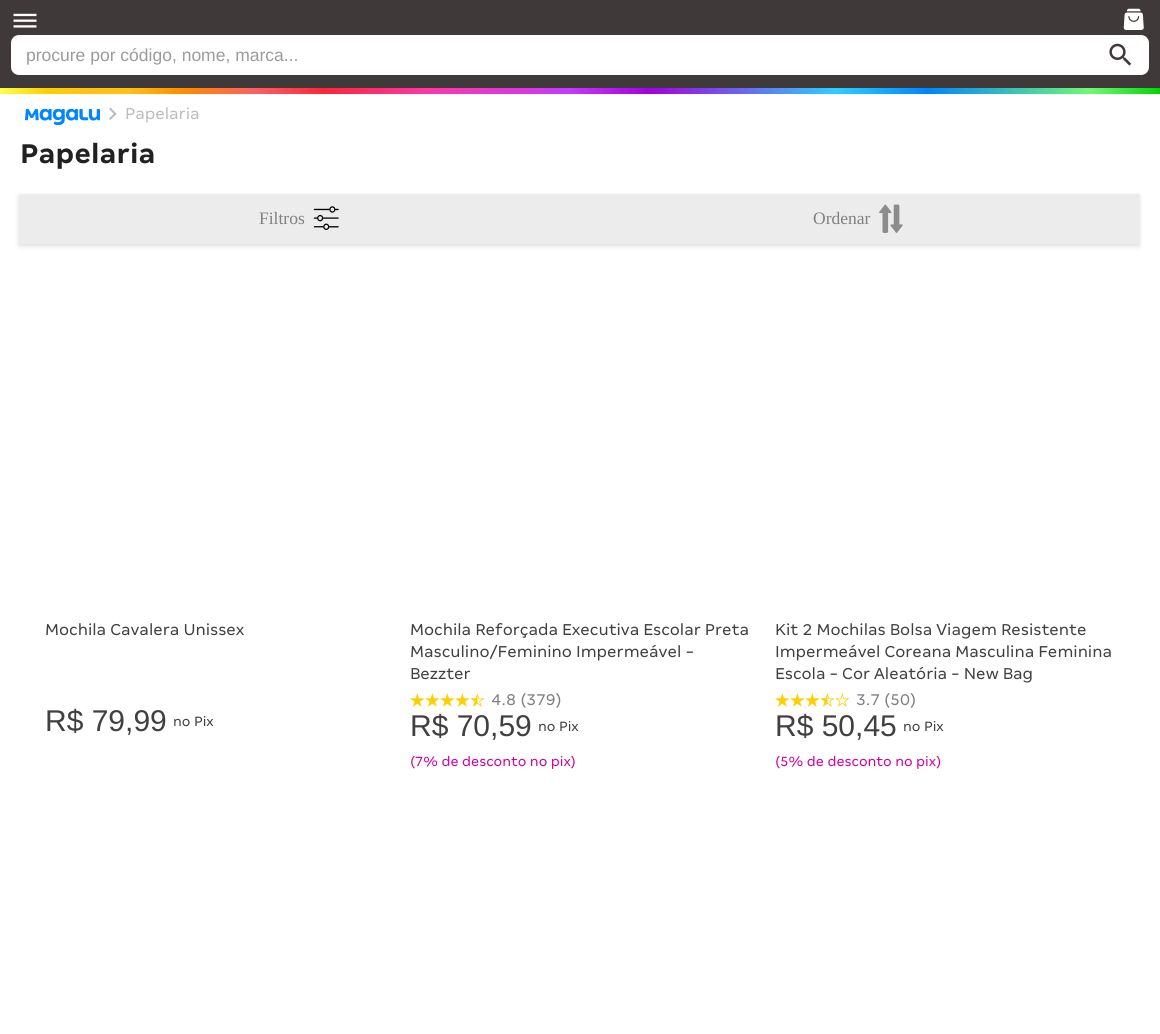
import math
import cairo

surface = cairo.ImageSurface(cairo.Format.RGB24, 1160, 1034)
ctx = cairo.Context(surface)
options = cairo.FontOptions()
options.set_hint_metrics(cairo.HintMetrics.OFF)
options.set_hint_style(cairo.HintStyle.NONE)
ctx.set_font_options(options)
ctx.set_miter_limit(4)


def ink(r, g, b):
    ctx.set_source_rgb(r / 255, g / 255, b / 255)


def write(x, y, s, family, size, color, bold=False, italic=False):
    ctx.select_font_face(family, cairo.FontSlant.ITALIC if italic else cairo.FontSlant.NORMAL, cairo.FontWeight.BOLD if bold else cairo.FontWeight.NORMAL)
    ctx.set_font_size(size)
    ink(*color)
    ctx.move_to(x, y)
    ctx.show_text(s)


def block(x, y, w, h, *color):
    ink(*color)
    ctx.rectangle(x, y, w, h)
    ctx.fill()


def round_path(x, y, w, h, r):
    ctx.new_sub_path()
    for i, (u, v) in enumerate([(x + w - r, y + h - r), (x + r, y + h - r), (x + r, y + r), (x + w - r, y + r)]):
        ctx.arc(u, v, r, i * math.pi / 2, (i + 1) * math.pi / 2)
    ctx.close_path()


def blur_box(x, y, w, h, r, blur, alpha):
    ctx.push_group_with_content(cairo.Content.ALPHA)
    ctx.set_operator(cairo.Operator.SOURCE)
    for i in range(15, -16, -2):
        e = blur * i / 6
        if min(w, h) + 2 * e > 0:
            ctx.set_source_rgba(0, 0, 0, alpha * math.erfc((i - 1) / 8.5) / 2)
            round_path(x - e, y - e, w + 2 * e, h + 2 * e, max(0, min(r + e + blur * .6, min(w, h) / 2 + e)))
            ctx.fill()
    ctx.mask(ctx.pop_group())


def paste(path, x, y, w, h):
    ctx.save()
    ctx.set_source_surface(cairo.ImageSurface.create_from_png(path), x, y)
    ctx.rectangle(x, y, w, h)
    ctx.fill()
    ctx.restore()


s1 = dict(family="Liberation Sans", size=17.5, color=(155, 155, 155))
s2 = dict(family="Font", size=17.5, color=(188, 188, 188))
s3 = dict(family="Font", size=30, color=(33, 33, 33), bold=True)
s4 = dict(family="Liberation Serif", size=17.5, color=(128, 128, 128))
s5 = dict(family="Font", size=17.5, color=(64, 64, 64))
s6 = dict(family="Liberation Sans", size=30, color=(64, 64, 64))
s7 = dict(family="Font", size=15, color=(64, 64, 64))
s8 = dict(family="Font", size=17.5, color=(128, 128, 128))
s9 = dict(family="Font", size=15, color=(209, 0, 162))

ink(255, 255, 255)
ctx.paint()
block(0, 0, 1160, 88, 64, 57, 57)
paste("pic1.png", 13, 13, 24, 15)
paste("pic2.png", 1123, 8, 21, 22)
ink(255, 255, 255)
round_path(11, 35, 1138, 40, 8)
ctx.fill()
write(26, 61, "procure por código, nome, marca...", **s1)
paste("pic3.png", 1109, 43, 23, 23)
gradient = cairo.LinearGradient(0, 91, 1160, 91)
gradient.add_color_stop_rgba(0, 1, 1, 0.29, 1)
gradient.add_color_stop_rgba(0.04, 0.988, 0.816, 0, 1)
gradient.add_color_stop_rgba(0.08, 1, 0.757, 0.071, 1)
gradient.add_color_stop_rgba(0.11, 1, 0.757, 0.071, 1)
gradient.add_color_stop_rgba(0.16, 1, 0.541, 0, 1)
gradient.add_color_stop_rgba(0.22, 1, 0.373, 0.373, 1)
gradient.add_color_stop_rgba(0.28, 1, 0.145, 0.227, 1)
gradient.add_color_stop_rgba(0.37, 1, 0.216, 0.659, 1)
gradient.add_color_stop_rgba(0.49, 0.78, 0.224, 1, 1)
gradient.add_color_stop_rgba(0.56, 0.643, 0, 0.882, 1)
gradient.add_color_stop_rgba(0.72, 0.18, 0.808, 1, 1)
gradient.add_color_stop_rgba(0.8, 0, 0.525, 1, 1)
gradient.add_color_stop_rgba(0.94, 0.447, 0.969, 0.447, 1)
gradient.add_color_stop_rgba(1, 0, 0.839, 0.016, 1)
ctx.set_source(gradient)
ctx.rectangle(0, 88, 1160, 6)
ctx.fill()
paste("pic4.png", 25, 109, 75, 17)
paste("pic5.png", 109, 107, 8, 13)
write(125, 119, "Papelaria", **s2)
write(20, 163, "Papelaria", **s3)
ink(0, 0, 0)
blur_box(19, 196, 1120, 50, 0, 2.5, 0.14)
block(20, 194, 1120, 50, 236, 236, 236)
write(259, 224, "Filtros", **s4)
paste("pic6.png", 313, 206, 26, 24)
write(813, 224, "Ordenar", **s4)
paste("pic7.png", 879, 204, 24, 29)
write(45, 635, "Mochila Cavalera Unissex", **s5)
write(45, 731, "R$ 79,99", **s6)
write(173, 726, "no Pix", **s7)
write(410, 635, "Mochila Reforçada Executiva Escolar Preta", **s5)
write(410, 657, "Masculino/Feminino Impermeável -", **s5)
write(410, 679, "Bezzter", **s5)
paste("pic8.png", 410, 693, 15, 14)
paste("pic8.png", 425, 693, 15, 14)
paste("pic8.png", 440, 693, 15, 14)
paste("pic8.png", 455, 693, 15, 14)
paste("pic9.png", 470, 693, 15, 14)
write(491, 705, "4.8 (379)", **s8)
write(410, 736, "R$ 70,59", **s6)
write(538, 731, "no Pix", **s7)
write(410, 766, "(7% de desconto no pix)", **s9)
write(775, 635, "Kit 2 Mochilas Bolsa Viagem Resistente", **s5)
write(775, 657, "Impermeável Coreana Masculina Feminina", **s5)
write(775, 679, "Escola - Cor Aleatória - New Bag", **s5)
paste("pic8.png", 775, 693, 15, 14)
paste("pic8.png", 790, 693, 15, 14)
paste("pic8.png", 805, 693, 15, 14)
paste("pic9.png", 820, 693, 15, 14)
paste("pic10.png", 835, 693, 15, 14)
write(856, 705, "3.7 (50)", **s8)
write(775, 736, "R$ 50,45", **s6)
write(903, 731, "no Pix", **s7)
write(775, 766, "(5% de desconto no pix)", **s9)
surface.write_to_png("screenshot.png")
